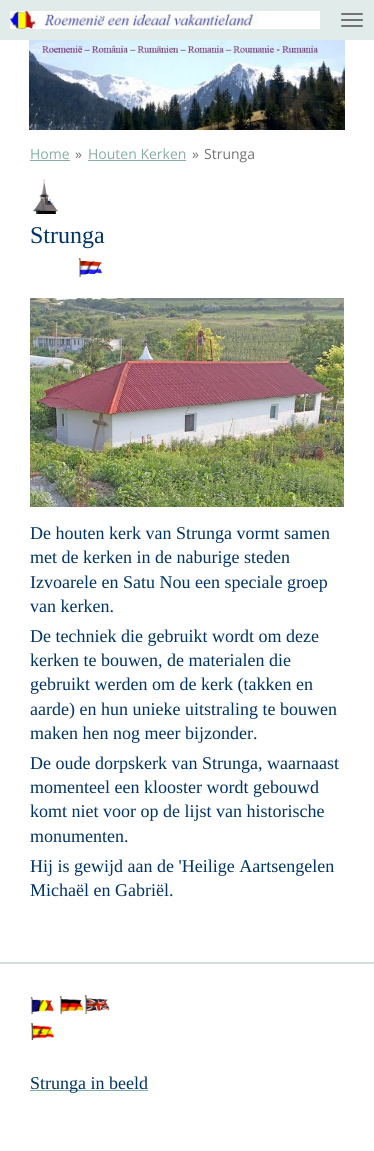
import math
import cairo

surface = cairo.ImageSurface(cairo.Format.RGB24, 374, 1151)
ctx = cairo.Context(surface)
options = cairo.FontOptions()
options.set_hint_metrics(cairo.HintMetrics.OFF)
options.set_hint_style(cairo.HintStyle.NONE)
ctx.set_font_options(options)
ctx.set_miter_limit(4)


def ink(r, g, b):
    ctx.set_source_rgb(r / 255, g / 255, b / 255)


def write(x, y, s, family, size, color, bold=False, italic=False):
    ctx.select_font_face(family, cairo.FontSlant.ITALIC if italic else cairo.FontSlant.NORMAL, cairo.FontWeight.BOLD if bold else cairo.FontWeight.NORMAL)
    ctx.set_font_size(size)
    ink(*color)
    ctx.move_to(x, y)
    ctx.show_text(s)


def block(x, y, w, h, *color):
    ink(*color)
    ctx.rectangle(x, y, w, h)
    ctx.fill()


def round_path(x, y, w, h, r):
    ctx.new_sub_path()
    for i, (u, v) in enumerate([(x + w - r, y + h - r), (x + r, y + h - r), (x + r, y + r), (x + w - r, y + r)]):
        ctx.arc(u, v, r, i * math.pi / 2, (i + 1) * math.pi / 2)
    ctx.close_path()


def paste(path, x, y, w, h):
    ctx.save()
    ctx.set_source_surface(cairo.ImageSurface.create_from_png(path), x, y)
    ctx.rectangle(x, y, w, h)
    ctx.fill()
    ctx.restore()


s1 = dict(family="Open Sans", size=14, color=(133, 174, 166))
s2 = dict(family="Open Sans", size=14, color=(115, 115, 115))
s3 = dict(family="Liberation Serif", size=24, color=(0, 51, 102))
s4 = dict(family="Liberation Serif", size=18, color=(0, 51, 102))

ink(255, 255, 255)
ctx.paint()
block(0, 0, 374, 40, 225, 235, 233)
ink(115, 115, 115)
round_path(341, 19, 22, 2, 1)
ctx.fill()
round_path(341, 13, 22, 2, 1)
ctx.fill()
round_path(341, 25, 22, 2, 1)
ctx.fill()
paste("pic1.png", 10, 11, 310, 18)
paste("pic2.png", 29, 40, 316, 90)
write(30, 159, "Home", **s1)
block(30, 160, 40, 1, 133, 174, 166)
write(75, 159, "»", **s2)
write(88, 159, "Houten Kerken", **s1)
block(88, 160, 98, 1, 133, 174, 166)
write(192, 159, "»", **s2)
write(204, 159, "Strunga", **s2)
paste("pic3.png", 33, 179, 25, 35)
write(30, 243, "Strunga", **s3)
paste("pic4.png", 78, 258, 25, 19)
paste("pic5.png", 30, 298, 314, 209)
write(30, 539, "De houten kerk van Strunga vormt samen", **s4)
write(30, 563, "met de kerken in de naburige steden", **s4)
write(30, 588, "Izvoarele en Satu Nou een speciale groep", **s4)
write(30, 612, "van kerken.", **s4)
write(30, 642, "De techniek die gebruikt wordt om deze", **s4)
write(30, 666, "kerken te bouwen, de materialen die", **s4)
write(30, 690, "gebruikt werden om de kerk (takken en", **s4)
write(30, 715, "aarde) en hun unieke uitstraling te bouwen", **s4)
write(30, 739, "maken hen nog meer bijzonder.", **s4)
write(30, 769, "De oude dorpskerk van Strunga, waarnaast", **s4)
write(30, 793, "momenteel een klooster wordt gebouwd", **s4)
write(30, 817, "komt niet voor op de lijst van historische", **s4)
write(30, 842, "monumenten.", **s4)
write(30, 872, "Hij is gewijd aan de 'Heilige Aartsengelen", **s4)
write(30, 896, "Michaël en Gabriël.", **s4)
block(0, 962, 374, 2, 210, 225, 222)
paste("pic6.png", 30, 997, 24, 17)
paste("pic7.png", 59, 996, 25, 18)
paste("pic8.png", 84, 995, 26, 19)
paste("pic9.png", 31, 1023, 23, 17)
block(30, 1090, 118, 1, 133, 174, 166)
write(30, 1089, "Strunga in beeld", **s4)
surface.write_to_png("screenshot.png")
